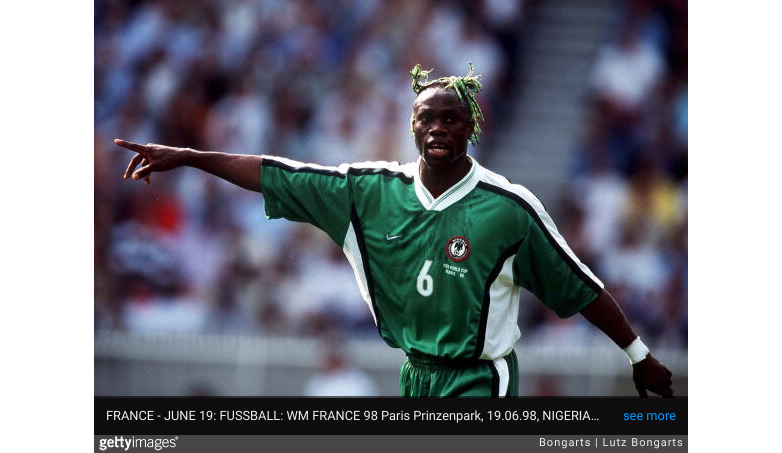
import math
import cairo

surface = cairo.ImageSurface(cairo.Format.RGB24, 782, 453)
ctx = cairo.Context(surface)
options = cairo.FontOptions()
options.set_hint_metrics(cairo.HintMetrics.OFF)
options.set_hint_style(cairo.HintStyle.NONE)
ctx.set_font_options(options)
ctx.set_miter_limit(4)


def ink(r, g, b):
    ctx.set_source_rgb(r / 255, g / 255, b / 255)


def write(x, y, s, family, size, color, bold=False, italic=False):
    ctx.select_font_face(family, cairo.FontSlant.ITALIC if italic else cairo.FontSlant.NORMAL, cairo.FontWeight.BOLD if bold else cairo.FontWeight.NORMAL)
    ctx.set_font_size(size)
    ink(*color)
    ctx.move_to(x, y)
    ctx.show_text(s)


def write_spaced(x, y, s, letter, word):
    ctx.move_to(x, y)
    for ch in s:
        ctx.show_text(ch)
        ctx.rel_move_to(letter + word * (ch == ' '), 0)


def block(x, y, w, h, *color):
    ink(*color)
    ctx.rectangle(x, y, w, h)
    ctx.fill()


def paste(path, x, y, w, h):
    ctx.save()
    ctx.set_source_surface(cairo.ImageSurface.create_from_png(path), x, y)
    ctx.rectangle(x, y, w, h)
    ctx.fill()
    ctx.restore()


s1 = dict(family="Roboto", size=12.8, color=(238, 238, 238))
s2 = dict(family="Roboto", size=12.8, color=(0, 153, 255))

ink(255, 255, 255)
ctx.paint()
block(94, 398, 594, 37, 37, 31, 32)
paste("pic1.png", 94, 0, 594, 398)
ctx.set_source_rgba(0, 0, 0, 0.6)
ctx.rectangle(94, 396, 594, 39)
ctx.fill()
write(106, 420, "FRANCE - JUNE 19: FUSSBALL: WM FRANCE 98 Paris Prinzenpark, 19.06.98, NIGERIA…", **s1)
write(623, 420, "see more", **s2)
block(94, 435, 594, 18, 71, 69, 69)
paste("pic2.png", 99, 436, 80, 15)
ctx.set_font_size(11)
ink(238, 238, 238)
write_spaced(539, 446, "Bongarts | Lutz Bongarts", 1, 0)
surface.write_to_png("screenshot.png")
